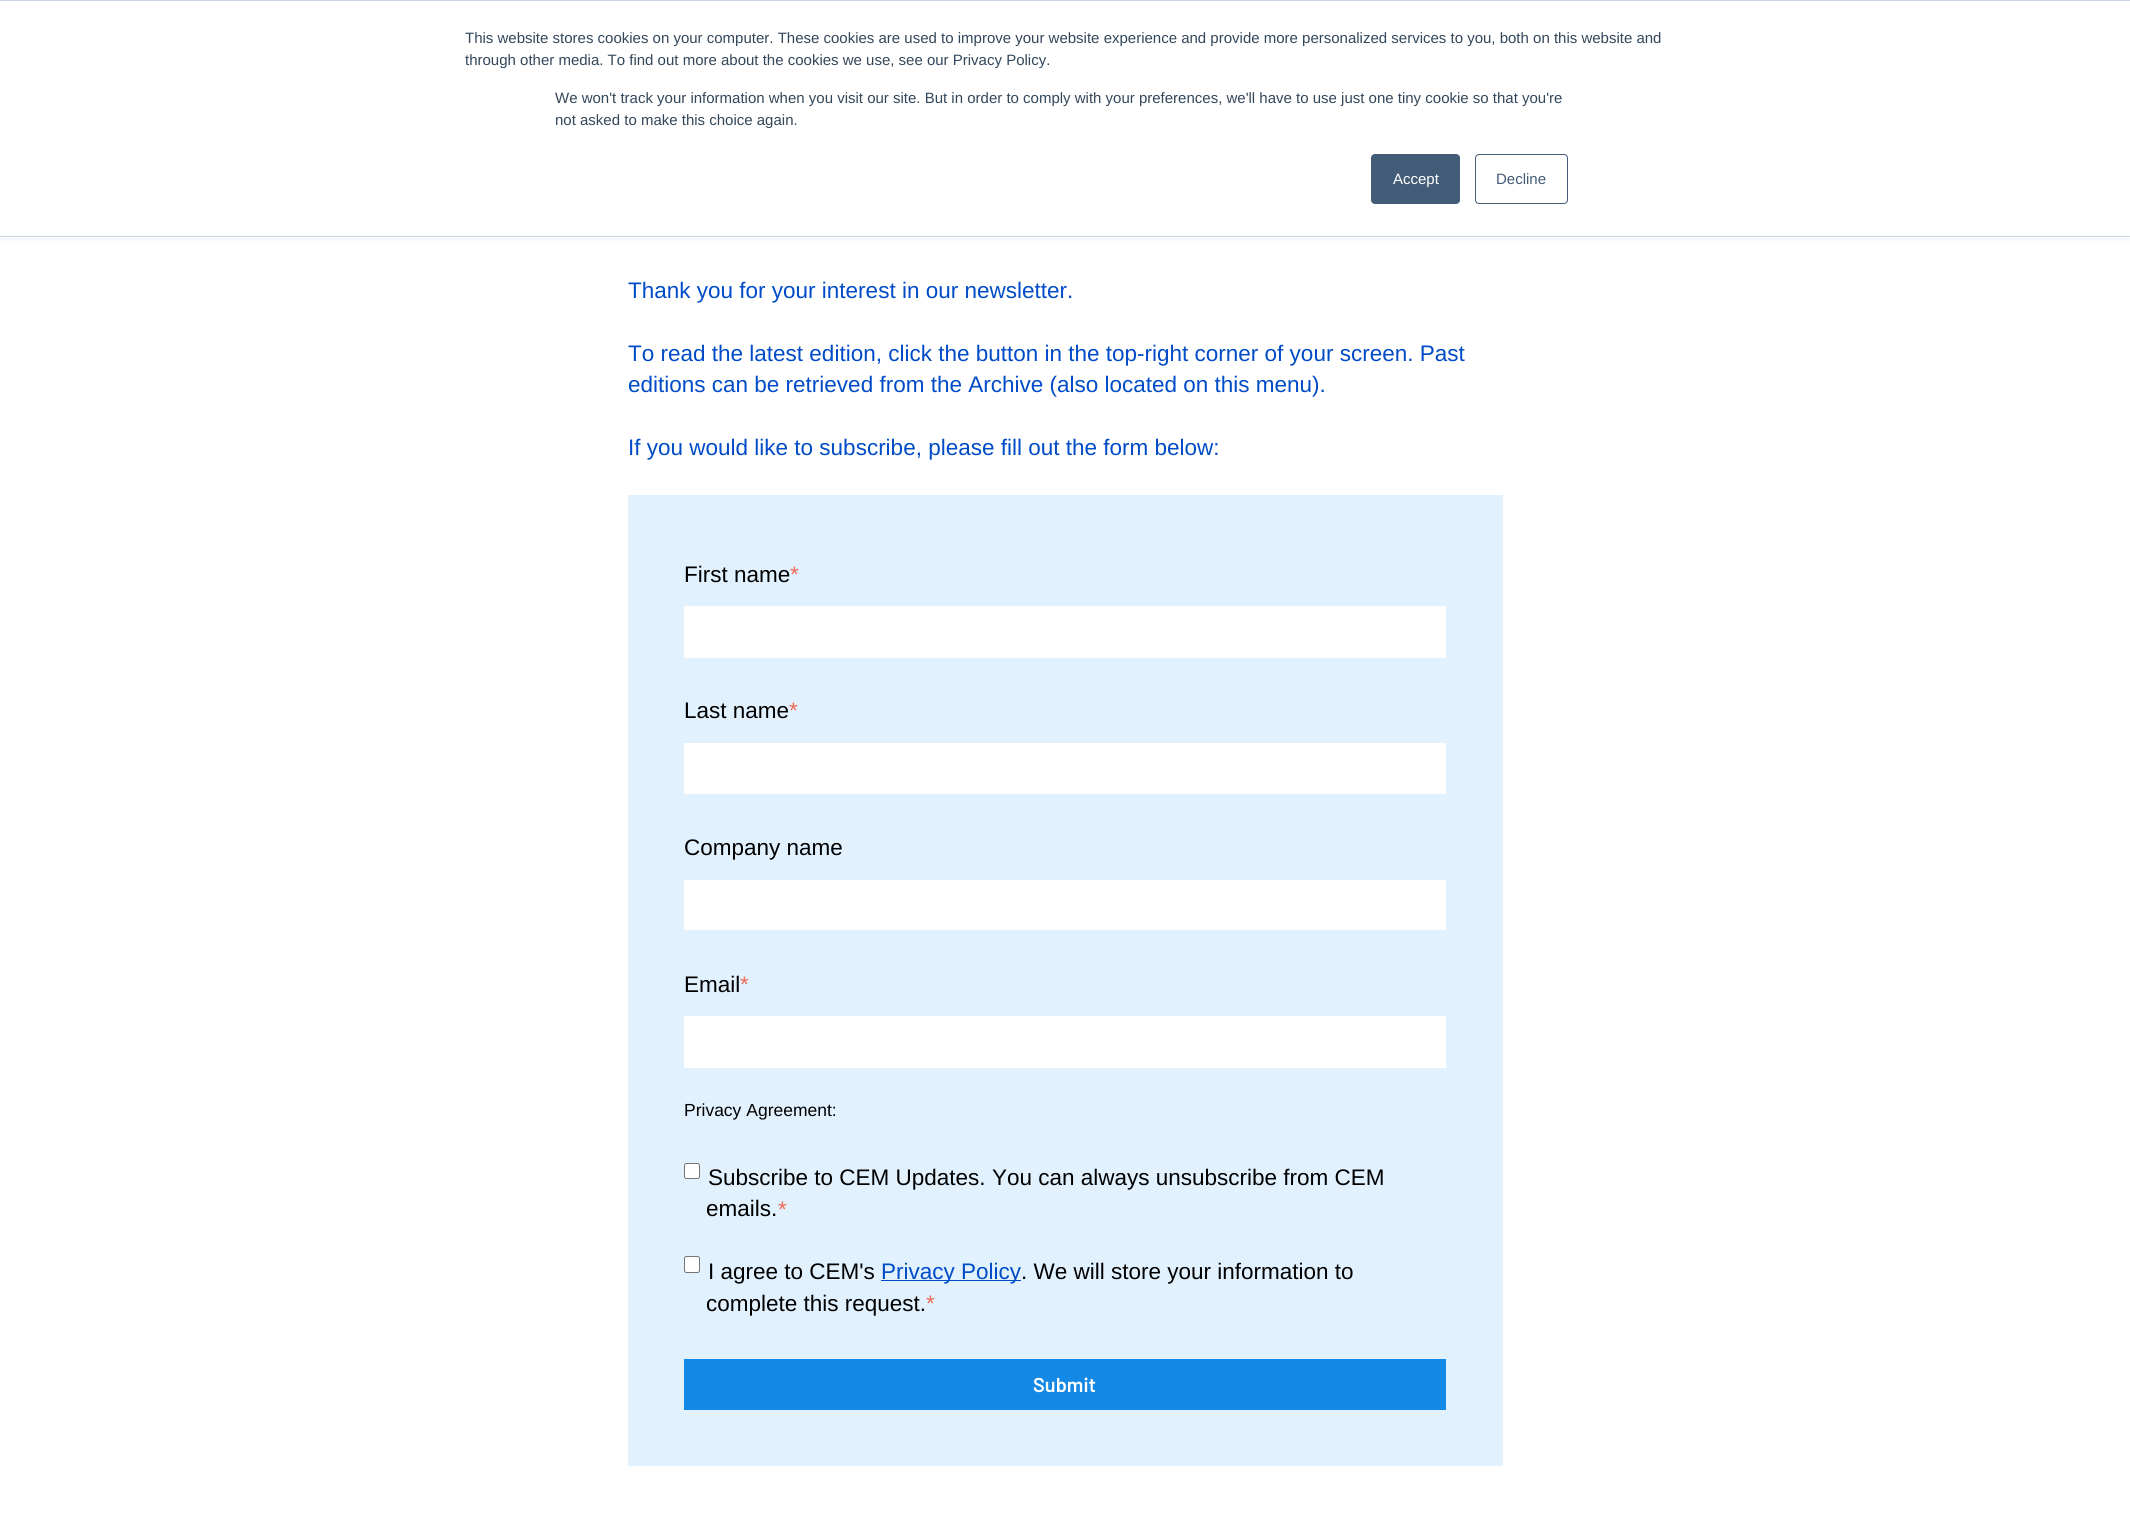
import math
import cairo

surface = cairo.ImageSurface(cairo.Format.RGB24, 2130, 1535)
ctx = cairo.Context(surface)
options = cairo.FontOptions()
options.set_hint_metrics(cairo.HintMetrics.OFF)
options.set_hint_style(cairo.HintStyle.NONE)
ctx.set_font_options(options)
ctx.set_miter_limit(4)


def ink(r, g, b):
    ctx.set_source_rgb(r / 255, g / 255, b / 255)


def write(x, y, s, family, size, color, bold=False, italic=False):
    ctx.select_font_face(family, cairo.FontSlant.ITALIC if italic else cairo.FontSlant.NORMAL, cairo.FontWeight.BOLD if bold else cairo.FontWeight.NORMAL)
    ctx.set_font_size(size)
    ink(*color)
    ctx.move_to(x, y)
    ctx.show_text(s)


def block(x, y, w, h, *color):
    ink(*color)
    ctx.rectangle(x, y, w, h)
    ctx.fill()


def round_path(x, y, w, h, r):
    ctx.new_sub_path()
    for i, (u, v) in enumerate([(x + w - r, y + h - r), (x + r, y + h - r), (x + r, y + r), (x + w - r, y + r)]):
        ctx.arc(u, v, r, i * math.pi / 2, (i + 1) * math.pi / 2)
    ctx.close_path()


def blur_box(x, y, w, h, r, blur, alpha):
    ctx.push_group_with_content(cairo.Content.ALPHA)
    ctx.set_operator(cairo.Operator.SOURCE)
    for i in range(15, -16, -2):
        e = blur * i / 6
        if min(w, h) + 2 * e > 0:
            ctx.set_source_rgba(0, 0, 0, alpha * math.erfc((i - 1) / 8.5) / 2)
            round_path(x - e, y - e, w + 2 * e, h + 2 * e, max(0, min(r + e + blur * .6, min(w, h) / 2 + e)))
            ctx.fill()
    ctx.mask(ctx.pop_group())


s1 = dict(family="Liberation Sans", size=15, color=(51, 71, 91))
s2 = dict(family="Liberation Sans", size=15, color=(255, 255, 255))
s3 = dict(family="Liberation Sans", size=15, color=(66, 91, 118))
s4 = dict(family="Liberation Sans", size=22.5, color=(0, 75, 199))
s5 = dict(family="Liberation Sans", size=22.5, color=(0, 0, 0))
s6 = dict(family="Liberation Sans", size=22.5, color=(239, 107, 81))
s7 = dict(family="Liberation Sans", size=17.5, color=(0, 0, 0))
s8 = dict(family="Barlow SemiBold", size=20, color=(255, 255, 255))

ink(255, 255, 255)
ctx.paint()
ink(234, 240, 246)
blur_box(0, 1, 2130, 238, 0, 3, 1)
block(0, 1, 2130, 237, 255, 255, 255)
block(0, 0, 2130, 1, 203, 214, 226)
block(0, 236, 2130, 1, 203, 214, 226)
write(465, 43, "This website stores cookies on your computer. These cookies are used to improve your website experience and provide more personalized services to you, both on this website and", **s1)
write(465, 65, "through other media. To find out more about the cookies we use, see our Privacy Policy.", **s1)
write(555, 103, "We won't track your information when you visit our site. But in order to comply with your preferences, we'll have to use just one tiny cookie so that you're", **s1)
write(555, 125, "not asked to make this choice again.", **s1)
ink(66, 91, 118)
round_path(1371.5, 154.5, 88, 49, 3.5)
ctx.fill_preserve()
ctx.set_line_width(1)
ctx.stroke()
write(1393, 184, "Accept", **s2)
round_path(1475.5, 154.5, 92, 49, 3.5)
ink(66, 91, 118)
ctx.stroke()
write(1496, 184, "Decline", **s3)
write(628, 298, "Thank you for your interest in our newsletter.", **s4)
write(628, 361, "To read the latest edition, click the button in the top-right corner of your screen. Past", **s4)
write(628, 392, "editions can be retrieved from the Archive (also located on this menu).", **s4)
write(628, 455, "If you would like to subscribe, please fill out the form below:", **s4)
block(628, 495, 875, 971, 225, 241, 254)
write(684, 582, "First name", **s5)
write(790, 582, "*", **s6)
block(684, 606, 762, 52, 255, 255, 255)
write(684, 718, "Last name", **s5)
write(789, 718, "*", **s6)
block(684, 743, 762, 51, 255, 255, 255)
write(684, 855, "Company name", **s5)
block(684, 880, 762, 50, 255, 255, 255)
write(684, 992, "Email", **s5)
write(740, 992, "*", **s6)
block(684, 1016, 762, 52, 255, 255, 255)
write(684, 1116, "Privacy Agreement:", **s7)
ink(255, 255, 255)
round_path(684.5, 1163.5, 15, 15, 2)
ctx.fill_preserve()
ink(118, 118, 118)
ctx.stroke()
write(708, 1185, "Subscribe to CEM Updates. You can always unsubscribe from CEM", **s5)
write(706, 1216, "emails.", **s5)
write(778, 1217, "*", **s6)
ink(255, 255, 255)
round_path(684.5, 1256.5, 15, 16, 2)
ctx.fill_preserve()
ink(118, 118, 118)
ctx.stroke()
write(708, 1279, "I agree to CEM's", **s5)
block(881, 1280, 140, 1, 0, 75, 199)
write(881, 1279, "Privacy Policy", **s4)
write(1021, 1279, ". We will store your information to", **s5)
write(706, 1311, "complete this request.", **s5)
write(926, 1311, "*", **s6)
block(684, 1359, 762, 51, 19, 136, 229)
write(1033, 1392, "Submit", **s8)
surface.write_to_png("screenshot.png")
